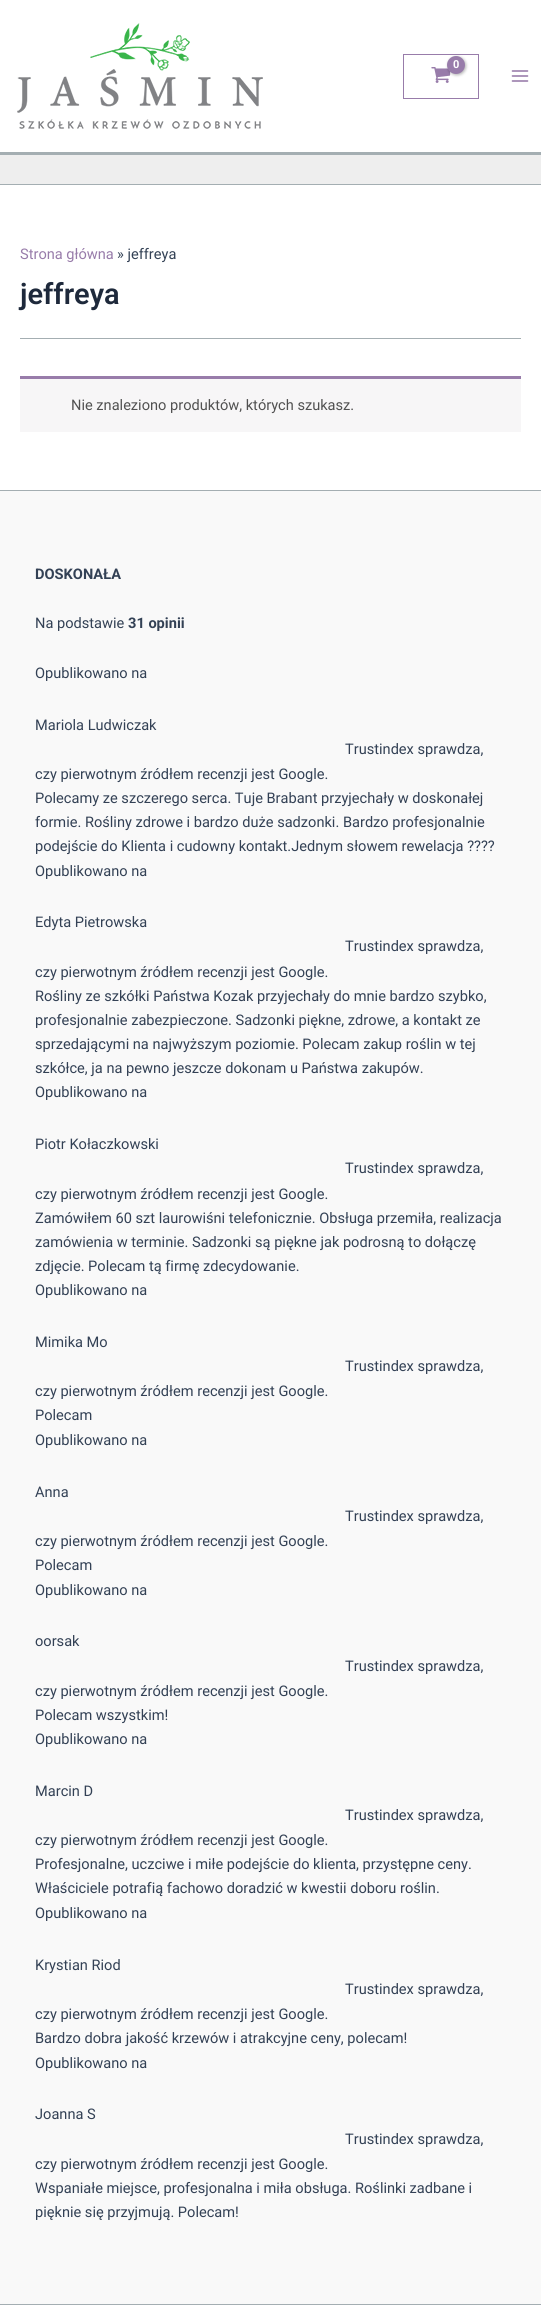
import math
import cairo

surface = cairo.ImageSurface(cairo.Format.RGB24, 541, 2324)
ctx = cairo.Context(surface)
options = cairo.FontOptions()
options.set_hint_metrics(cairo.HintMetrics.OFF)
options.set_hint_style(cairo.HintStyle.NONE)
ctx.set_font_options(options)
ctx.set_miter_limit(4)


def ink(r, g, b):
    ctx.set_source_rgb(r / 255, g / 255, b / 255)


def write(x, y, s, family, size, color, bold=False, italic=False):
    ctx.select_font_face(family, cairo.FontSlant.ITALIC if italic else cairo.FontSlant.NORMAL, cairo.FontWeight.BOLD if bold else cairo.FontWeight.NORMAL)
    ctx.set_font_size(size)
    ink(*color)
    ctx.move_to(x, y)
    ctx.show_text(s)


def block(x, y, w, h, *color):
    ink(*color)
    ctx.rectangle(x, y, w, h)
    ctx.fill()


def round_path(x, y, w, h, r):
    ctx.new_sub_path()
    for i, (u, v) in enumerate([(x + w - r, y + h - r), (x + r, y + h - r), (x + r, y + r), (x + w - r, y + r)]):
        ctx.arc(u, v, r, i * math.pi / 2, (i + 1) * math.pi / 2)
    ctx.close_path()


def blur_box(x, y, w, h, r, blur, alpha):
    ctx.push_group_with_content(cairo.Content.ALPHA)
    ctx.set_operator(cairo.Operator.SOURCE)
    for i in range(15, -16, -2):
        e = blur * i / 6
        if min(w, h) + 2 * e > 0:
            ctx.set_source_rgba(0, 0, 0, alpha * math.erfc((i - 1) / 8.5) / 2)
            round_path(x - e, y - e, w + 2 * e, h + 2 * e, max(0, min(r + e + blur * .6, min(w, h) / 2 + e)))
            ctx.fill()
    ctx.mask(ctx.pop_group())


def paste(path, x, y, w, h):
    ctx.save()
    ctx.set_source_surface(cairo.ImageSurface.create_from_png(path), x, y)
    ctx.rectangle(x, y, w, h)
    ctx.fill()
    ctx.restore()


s1 = dict(family="Roboto", size=11, color=(255, 255, 255), bold=True)
s2 = dict(family="Roboto", size=14.6, color=(152, 124, 170))
s3 = dict(family="Roboto", size=14.6, color=(51, 65, 85))
s4 = dict(family="Roboto SemiBold", size=29, color=(30, 41, 59))
s5 = dict(family="Roboto", size=14.6, color=(81, 81, 81))
s6 = dict(family="Roboto", size=14.6, color=(51, 65, 85), bold=True)

ink(255, 255, 255)
ctx.paint()
block(0, 152, 541, 3, 164, 174, 178)
paste("pic1.png", 17, 23, 246, 106)
ctx.rectangle(403.5, 54.5, 75, 44)
ink(152, 124, 170)
ctx.set_line_width(1)
ctx.stroke()
paste("pic2.png", 431, 67, 20, 16)
ink(0, 0, 0)
blur_box(448, 57, 18, 18, 9, 1.5, 0.3)
ink(152, 124, 170)
ctx.arc(456, 65, 9, 0, 2 * math.pi)
ctx.fill()
write(453, 68, "0", **s1)
paste("pic3.png", 511, 70, 18, 12)
block(0, 155, 541, 29, 238, 238, 238)
block(0, 184, 541, 1, 164, 174, 178)
block(20, 338, 501, 1, 164, 174, 178)
write(20, 259, "Strona główna", **s2)
write(117, 259, "» jeffreya", **s3)
write(20, 304, "jeffreya", **s4)
block(20, 379, 501, 53, 247, 246, 247)
block(20, 376, 501, 3, 152, 124, 170)
write(71, 410, "Nie znaleziono produktów, których szukasz.", **s5)
block(0, 491, 541, 1813, 249, 249, 249)
block(0, 490, 541, 1, 164, 174, 178)
write(35, 579, "DOSKONAŁA", **s6)
write(35, 628, "Na podstawie", **s3)
write(128, 628, "31 opinii", **s6)
write(35, 678, "Opublikowano na", **s3)
write(35, 730, "Mariola Ludwiczak", **s3)
write(345, 754, "Trustindex sprawdza,", **s3)
write(35, 779, "czy pierwotnym źródłem recenzji jest Google.", **s3)
write(35, 803, "Polecamy ze szczerego serca. Tuje Brabant przyjechały w doskonałej", **s3)
write(35, 827, "formie. Rośliny zdrowe i bardzo duże sadzonki. Bardzo profesjonalnie", **s3)
write(35, 851, "podejście do Klienta i cudowny kontakt.Jednym słowem rewelacja ????", **s3)
write(35, 876, "Opublikowano na", **s3)
write(35, 927, "Edyta Pietrowska", **s3)
write(345, 951, "Trustindex sprawdza,", **s3)
write(35, 977, "czy pierwotnym źródłem recenzji jest Google.", **s3)
write(35, 1001, "Rośliny ze szkółki Państwa Kozak przyjechały do mnie bardzo szybko,", **s3)
write(35, 1025, "profesjonalnie zabezpieczone. Sadzonki piękne, zdrowe, a kontakt ze", **s3)
write(35, 1049, "sprzedającymi na najwyższym poziomie. Polecam zakup roślin w tej", **s3)
write(35, 1073, "szkółce, ja na pewno jeszcze dokonam u Państwa zakupów.", **s3)
write(35, 1097, "Opublikowano na", **s3)
write(35, 1149, "Piotr Kołaczkowski", **s3)
write(345, 1173, "Trustindex sprawdza,", **s3)
write(35, 1199, "czy pierwotnym źródłem recenzji jest Google.", **s3)
write(35, 1223, "Zamówiłem 60 szt laurowiśni telefonicznie. Obsługa przemiła, realizacja", **s3)
write(35, 1247, "zamówienia w terminie. Sadzonki są piękne jak podrosną to dołączę", **s3)
write(35, 1271, "zdjęcie. Polecam tą firmę zdecydowanie.", **s3)
write(35, 1295, "Opublikowano na", **s3)
write(35, 1347, "Mimika Mo", **s3)
write(345, 1371, "Trustindex sprawdza,", **s3)
write(35, 1396, "czy pierwotnym źródłem recenzji jest Google.", **s3)
write(35, 1420, "Polecam", **s3)
write(35, 1445, "Opublikowano na", **s3)
write(35, 1497, "Anna", **s3)
write(345, 1521, "Trustindex sprawdza,", **s3)
write(35, 1546, "czy pierwotnym źródłem recenzji jest Google.", **s3)
write(35, 1570, "Polecam", **s3)
write(35, 1595, "Opublikowano na", **s3)
write(35, 1646, "oorsak", **s3)
write(345, 1671, "Trustindex sprawdza,", **s3)
write(35, 1696, "czy pierwotnym źródłem recenzji jest Google.", **s3)
write(35, 1720, "Polecam wszystkim!", **s3)
write(35, 1744, "Opublikowano na", **s3)
write(35, 1796, "Marcin D", **s3)
write(345, 1820, "Trustindex sprawdza,", **s3)
write(35, 1845, "czy pierwotnym źródłem recenzji jest Google.", **s3)
write(35, 1869, "Profesjonalne, uczciwe i miłe podejście do klienta, przystępne ceny.", **s3)
write(35, 1893, "Właściciele potrafią fachowo doradzić w kwestii doboru roślin.", **s3)
write(35, 1918, "Opublikowano na", **s3)
write(35, 1970, "Krystian Riod", **s3)
write(345, 1994, "Trustindex sprawdza,", **s3)
write(35, 2019, "czy pierwotnym źródłem recenzji jest Google.", **s3)
write(35, 2043, "Bardzo dobra jakość krzewów i atrakcyjne ceny, polecam!", **s3)
write(35, 2068, "Opublikowano na", **s3)
write(35, 2119, "Joanna S", **s3)
write(345, 2144, "Trustindex sprawdza,", **s3)
write(35, 2169, "czy pierwotnym źródłem recenzji jest Google.", **s3)
write(35, 2193, "Wspaniałe miejsce, profesjonalna i miła obsługa. Roślinki zadbane i", **s3)
write(35, 2217, "pięknie się przyjmują. Polecam!", **s3)
block(0, 2304, 541, 1, 164, 174, 178)
surface.write_to_png("screenshot.png")
